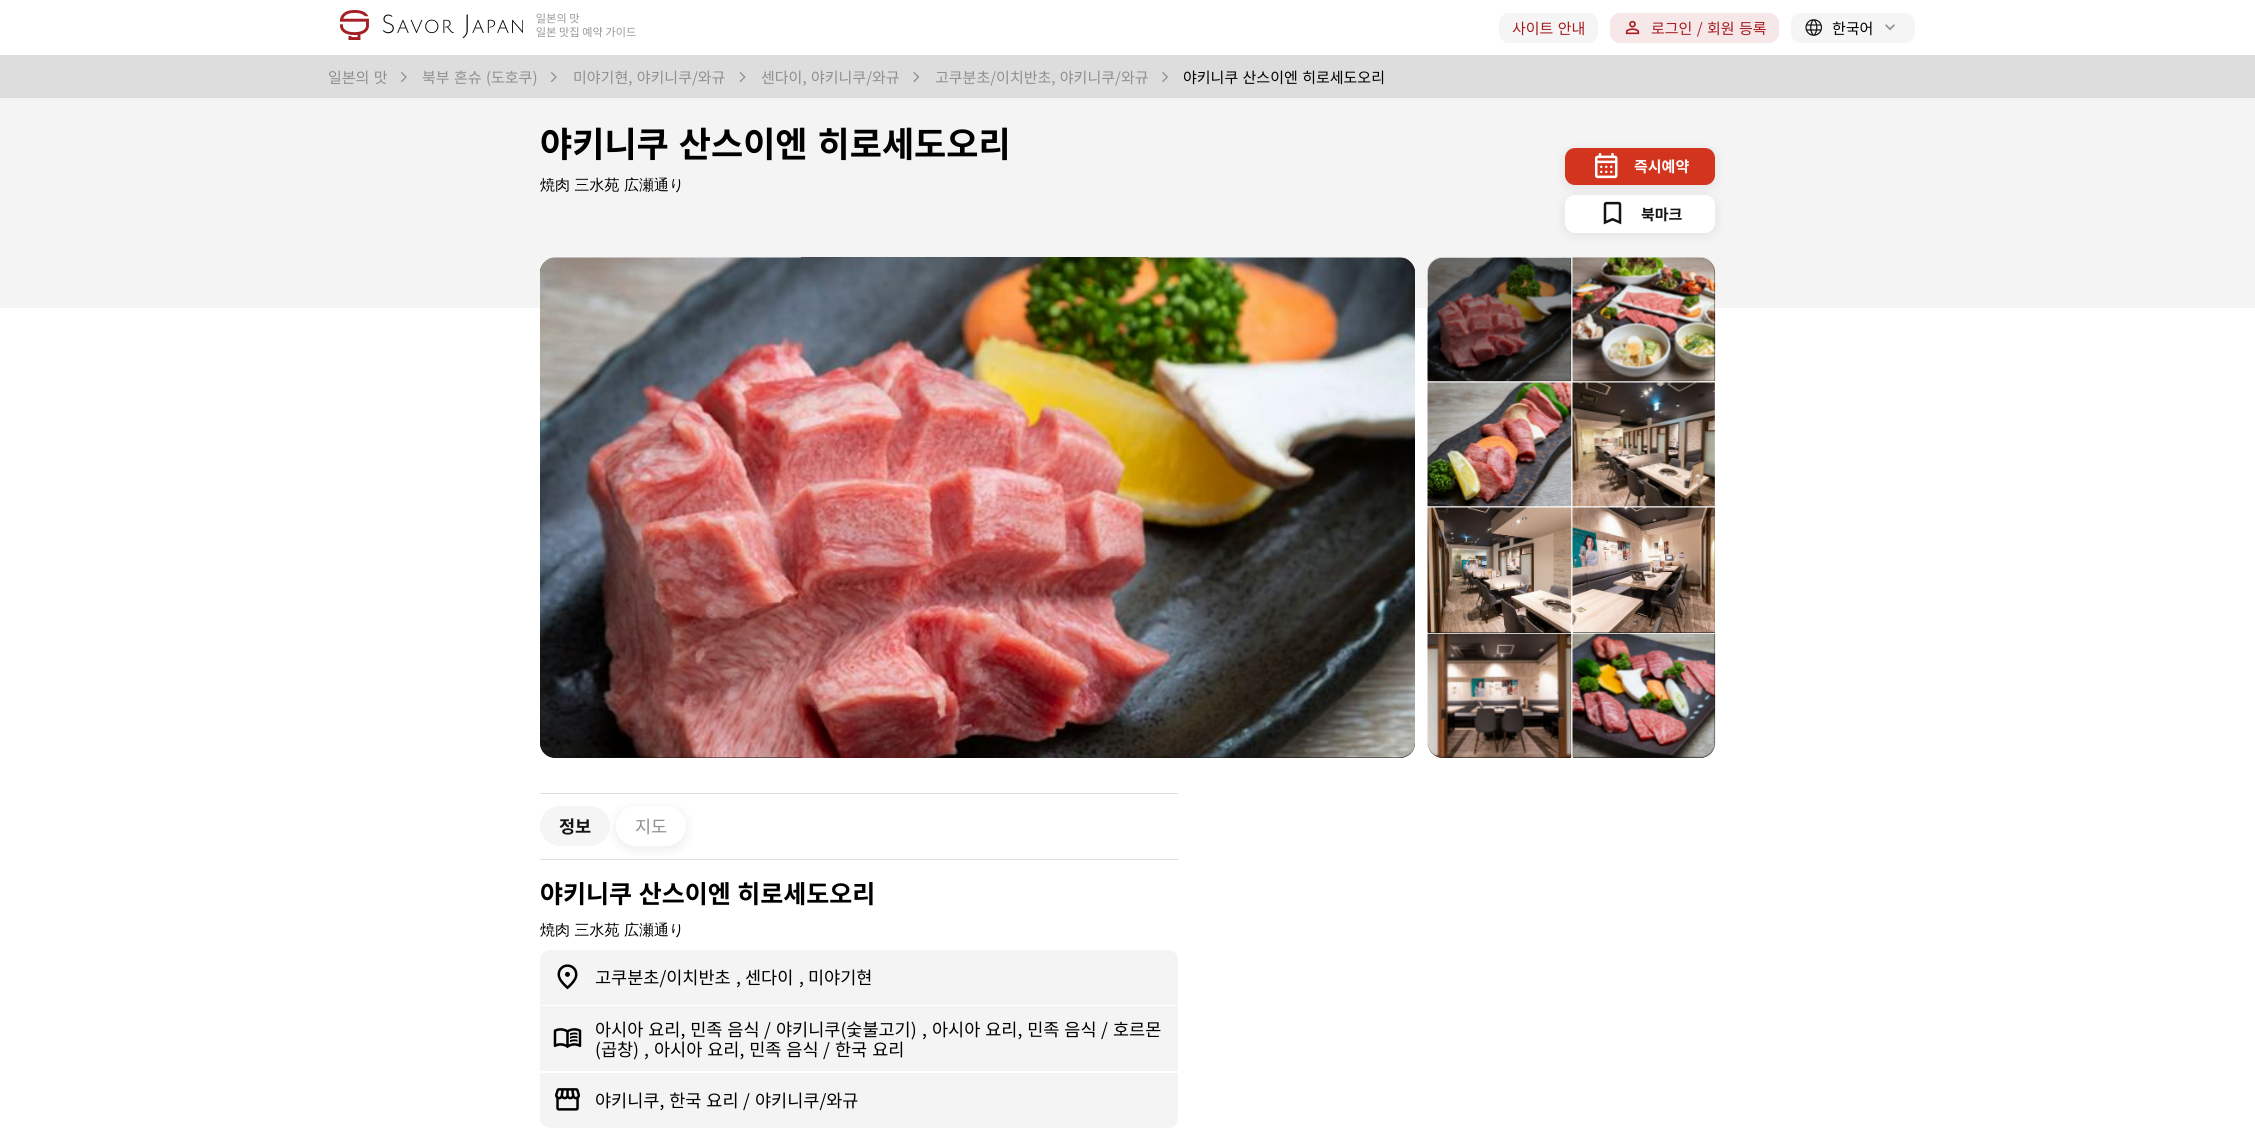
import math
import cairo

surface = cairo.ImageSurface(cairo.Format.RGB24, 2255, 1132)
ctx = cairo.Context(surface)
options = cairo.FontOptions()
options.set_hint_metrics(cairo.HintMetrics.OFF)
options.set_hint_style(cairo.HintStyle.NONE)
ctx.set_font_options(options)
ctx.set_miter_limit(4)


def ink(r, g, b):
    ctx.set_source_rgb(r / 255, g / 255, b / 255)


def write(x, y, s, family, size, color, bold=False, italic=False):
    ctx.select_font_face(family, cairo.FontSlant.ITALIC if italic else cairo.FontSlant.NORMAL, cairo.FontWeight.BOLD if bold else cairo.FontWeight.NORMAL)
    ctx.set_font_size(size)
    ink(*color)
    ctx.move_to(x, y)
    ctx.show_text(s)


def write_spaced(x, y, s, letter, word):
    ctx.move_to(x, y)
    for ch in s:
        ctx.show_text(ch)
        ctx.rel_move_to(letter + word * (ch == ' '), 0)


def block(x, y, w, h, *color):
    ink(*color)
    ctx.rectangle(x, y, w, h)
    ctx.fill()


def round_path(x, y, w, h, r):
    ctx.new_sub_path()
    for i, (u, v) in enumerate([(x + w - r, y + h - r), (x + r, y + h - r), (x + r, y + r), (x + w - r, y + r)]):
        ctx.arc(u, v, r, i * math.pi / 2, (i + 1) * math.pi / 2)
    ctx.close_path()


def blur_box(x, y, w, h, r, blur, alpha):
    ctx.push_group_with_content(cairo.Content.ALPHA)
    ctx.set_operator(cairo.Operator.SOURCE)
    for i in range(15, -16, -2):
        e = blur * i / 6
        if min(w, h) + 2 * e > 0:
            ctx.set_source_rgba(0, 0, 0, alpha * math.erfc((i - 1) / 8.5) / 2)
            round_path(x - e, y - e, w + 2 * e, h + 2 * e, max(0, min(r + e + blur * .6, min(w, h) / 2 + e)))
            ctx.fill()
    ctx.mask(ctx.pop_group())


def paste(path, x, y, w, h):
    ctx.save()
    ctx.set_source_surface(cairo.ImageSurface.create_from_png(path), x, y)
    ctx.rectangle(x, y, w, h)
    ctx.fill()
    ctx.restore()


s1 = dict(family="Noto Sans KR", size=15, color=(0, 0, 0))
s2 = dict(family="WenQuanYi Zen Hei Medium", size=15, color=(0, 0, 0))
s3 = dict(family="Noto Sans KR", size=15, color=(255, 255, 255), bold=True)
s4 = dict(family="Noto Sans KR", size=15, color=(20, 20, 20), bold=True)
s5 = dict(family="Noto Sans KR", size=17.5, color=(20, 20, 20), bold=True)
s6 = dict(family="Noto Sans KR", size=17.5, color=(143, 143, 143))
s7 = dict(family="Noto Sans KR", size=17.5, color=(0, 0, 0))

ink(255, 255, 255)
ctx.paint()
paste("pic1.png", 340, 10, 296, 30)
ink(245, 245, 245)
round_path(1499, 13, 99, 30, 10)
ctx.fill()
ctx.select_font_face("Noto Sans KR")
ctx.set_font_size(15)
ink(165, 27, 32)
write_spaced(1512, 34, "사이트 안내", 0, 1)
ink(246, 232, 233)
round_path(1610, 13, 169, 30, 10)
ctx.fill()
paste("pic2.png", 1625, 20, 15, 15)
ink(165, 27, 32)
write_spaced(1651, 34, "로그인 / 회원 등록", 0, 1)
ink(245, 245, 245)
round_path(1791, 13, 124, 30, 10)
ctx.fill()
paste("pic3.png", 1805, 19, 18, 17)
write(1832, 34, "한국어", **s1)
paste("pic4.png", 1885, 24, 10, 7)
block(0, 98, 2255, 210, 244, 244, 244)
ctx.select_font_face("Noto Sans KR", cairo.FontSlant.NORMAL, cairo.FontWeight.BOLD)
ctx.set_font_size(35)
ink(0, 0, 0)
write_spaced(540, 157, "야키니쿠 산스이엔 히로세도오리", 0, 2)
write(540, 190, "焼肉 三水苑 広瀬通り", **s2)
ink(0, 0, 0)
blur_box(1565, 150, 150, 38, 10, 6, 0.08)
ink(211, 52, 29)
round_path(1565, 148, 150, 37, 10)
ctx.fill()
paste("pic5.png", 1595, 153, 23, 26)
write(1634, 172, "즉시예약", **s3)
ink(0, 0, 0)
blur_box(1565, 198, 150, 37, 10, 6, 0.08)
ink(255, 255, 255)
round_path(1565, 195, 150, 38, 10)
ctx.fill()
paste("pic6.png", 1603, 201, 19, 24)
write(1641, 220, "북마크", **s4)
round_path(540, 258, 875, 500, 15)
ctx.fill()
paste("pic7.png", 540, 257, 875, 501)
ctx.new_path()
ctx.move_to(1443, 258)
ctx.line_to(1571, 258)
ctx.line_to(1571, 381)
ctx.line_to(1428, 381)
ctx.line_to(1428, 273)
ctx.curve_to(1428, 264.5, 1434.5, 258, 1443, 258)
ctx.close_path()
ctx.fill()
paste("pic8.png", 1427, 257, 145, 125)
ctx.set_source_rgba(0, 0, 0, 0.4)
ctx.new_path()
ctx.move_to(1443, 258)
ctx.line_to(1571, 258)
ctx.line_to(1571, 381)
ctx.line_to(1428, 381)
ctx.line_to(1428, 273)
ctx.curve_to(1428, 264.5, 1434.5, 258, 1443, 258)
ctx.close_path()
ctx.fill()
ink(20, 20, 20)
ctx.new_path()
ctx.move_to(1573, 258)
ctx.line_to(1700, 258)
ctx.curve_to(1708.5, 258, 1715, 264.5, 1715, 273)
ctx.line_to(1715, 381)
ctx.line_to(1573, 381)
ctx.close_path()
ctx.fill()
paste("pic9.png", 1572, 257, 144, 125)
paste("pic10.png", 1427, 382, 145, 125)
paste("pic11.png", 1572, 382, 143, 125)
block(1428, 632, 143, 1, 20, 20, 20)
paste("pic12.png", 1427, 507, 145, 126)
block(1573, 508, 142, 125, 20, 20, 20)
paste("pic13.png", 1572, 507, 143, 126)
ctx.new_path()
ctx.move_to(1428, 634)
ctx.line_to(1571, 634)
ctx.line_to(1571, 758)
ctx.line_to(1443, 758)
ctx.curve_to(1434.5, 758, 1428, 751.5, 1428, 743)
ctx.close_path()
ctx.fill()
paste("pic14.png", 1427, 633, 145, 125)
ctx.new_path()
ctx.move_to(1573, 634)
ctx.line_to(1715, 634)
ctx.line_to(1715, 743)
ctx.curve_to(1715, 751.5, 1708.5, 758, 1700, 758)
ctx.line_to(1573, 758)
ctx.close_path()
ctx.fill()
paste("pic15.png", 1572, 633, 144, 125)
block(540, 793, 638, 1, 221, 221, 221)
block(540, 859, 638, 1, 221, 221, 221)
ink(245, 245, 245)
round_path(540, 806, 70, 40, 20)
ctx.fill()
write(559, 833, "정보", **s5)
ink(0, 0, 0)
blur_box(616, 809, 70, 40, 20, 6, 0.08)
ink(255, 255, 255)
round_path(616, 806, 70, 40, 20)
ctx.fill()
write(635, 833, "지도", **s6)
ctx.select_font_face("Noto Sans KR", cairo.FontSlant.NORMAL, cairo.FontWeight.BOLD)
ctx.set_font_size(25)
ink(0, 0, 0)
write_spaced(540, 903, "야키니쿠 산스이엔 히로세도오리", 0, 1)
write(540, 935, "焼肉 三水苑 広瀬通り", **s2)
ink(244, 244, 244)
ctx.new_path()
ctx.move_to(550, 950)
ctx.line_to(1168, 950)
ctx.curve_to(1173.5, 950, 1178, 954.5, 1178, 960)
ctx.line_to(1178, 1005)
ctx.line_to(540, 1005)
ctx.line_to(540, 960)
ctx.curve_to(540, 954.5, 544.5, 950, 550, 950)
ctx.close_path()
ctx.fill()
paste("pic16.png", 557, 964, 21, 26)
write(595, 984, "고쿠분초/이치반초", **s7)
write(736, 984, ",", **s7)
write(745, 984, "센다이", **s7)
write(799, 984, ",", **s7)
write(808, 984, "미야기현", **s7)
block(540, 1006, 638, 65, 244, 244, 244)
paste("pic17.png", 553, 1028, 29, 20)
ink(0, 0, 0)
write_spaced(595, 1036, "아시아 요리, 민족 음식", 0, 1)
write(764, 1036, "/", **s7)
write(776, 1036, "야키니쿠(숯불고기)", **s7)
write(922, 1036, ",", **s7)
write_spaced(932, 1036, "아시아 요리, 민족 음식", 0, 1)
write(1101, 1036, "/", **s7)
write(1113, 1036, "호르몬", **s7)
write(595, 1056, "(곱창)", **s7)
write(644, 1056, ",", **s7)
write_spaced(654, 1056, "아시아 요리, 민족 음식", 0, 1)
write(823, 1056, "/", **s7)
write_spaced(835, 1056, "한국 요리", 0, 1)
ink(244, 244, 244)
ctx.new_path()
ctx.move_to(540, 1073)
ctx.line_to(1178, 1073)
ctx.line_to(1178, 1118)
ctx.curve_to(1178, 1123.5, 1173.5, 1128, 1168, 1128)
ctx.line_to(550, 1128)
ctx.curve_to(544.5, 1128, 540, 1123.5, 540, 1118)
ctx.close_path()
ctx.fill()
paste("pic18.png", 555, 1088, 26, 23)
ink(0, 0, 0)
write_spaced(595, 1107, "야키니쿠, 한국 요리", 0, 1)
write(743, 1107, "/", **s7)
write(755, 1107, "야키니쿠/와규", **s7)
block(0, 55, 2255, 43, 221, 221, 221)
ctx.set_font_size(15)
ink(143, 143, 143)
write_spaced(328, 83, "일본의 맛", 0, 1)
paste("pic19.png", 400, 72, 7, 11)
write_spaced(422, 83, "북부 혼슈 (도호쿠)", 0, 1)
paste("pic19.png", 550, 72, 7, 11)
write_spaced(573, 83, "미야기현, 야키니쿠/와규", 0, 1)
paste("pic20.png", 739, 72, 7, 11)
write_spaced(761, 83, "센다이, 야키니쿠/와규", 0, 1)
paste("pic21.png", 913, 72, 7, 11)
write_spaced(935, 83, "고쿠분초/이치반초, 야키니쿠/와규", 0, 1)
paste("pic22.png", 1162, 72, 6, 10)
ink(0, 0, 0)
write_spaced(1183, 83, "야키니쿠 산스이엔 히로세도오리", 0, 1)
surface.write_to_png("screenshot.png")
